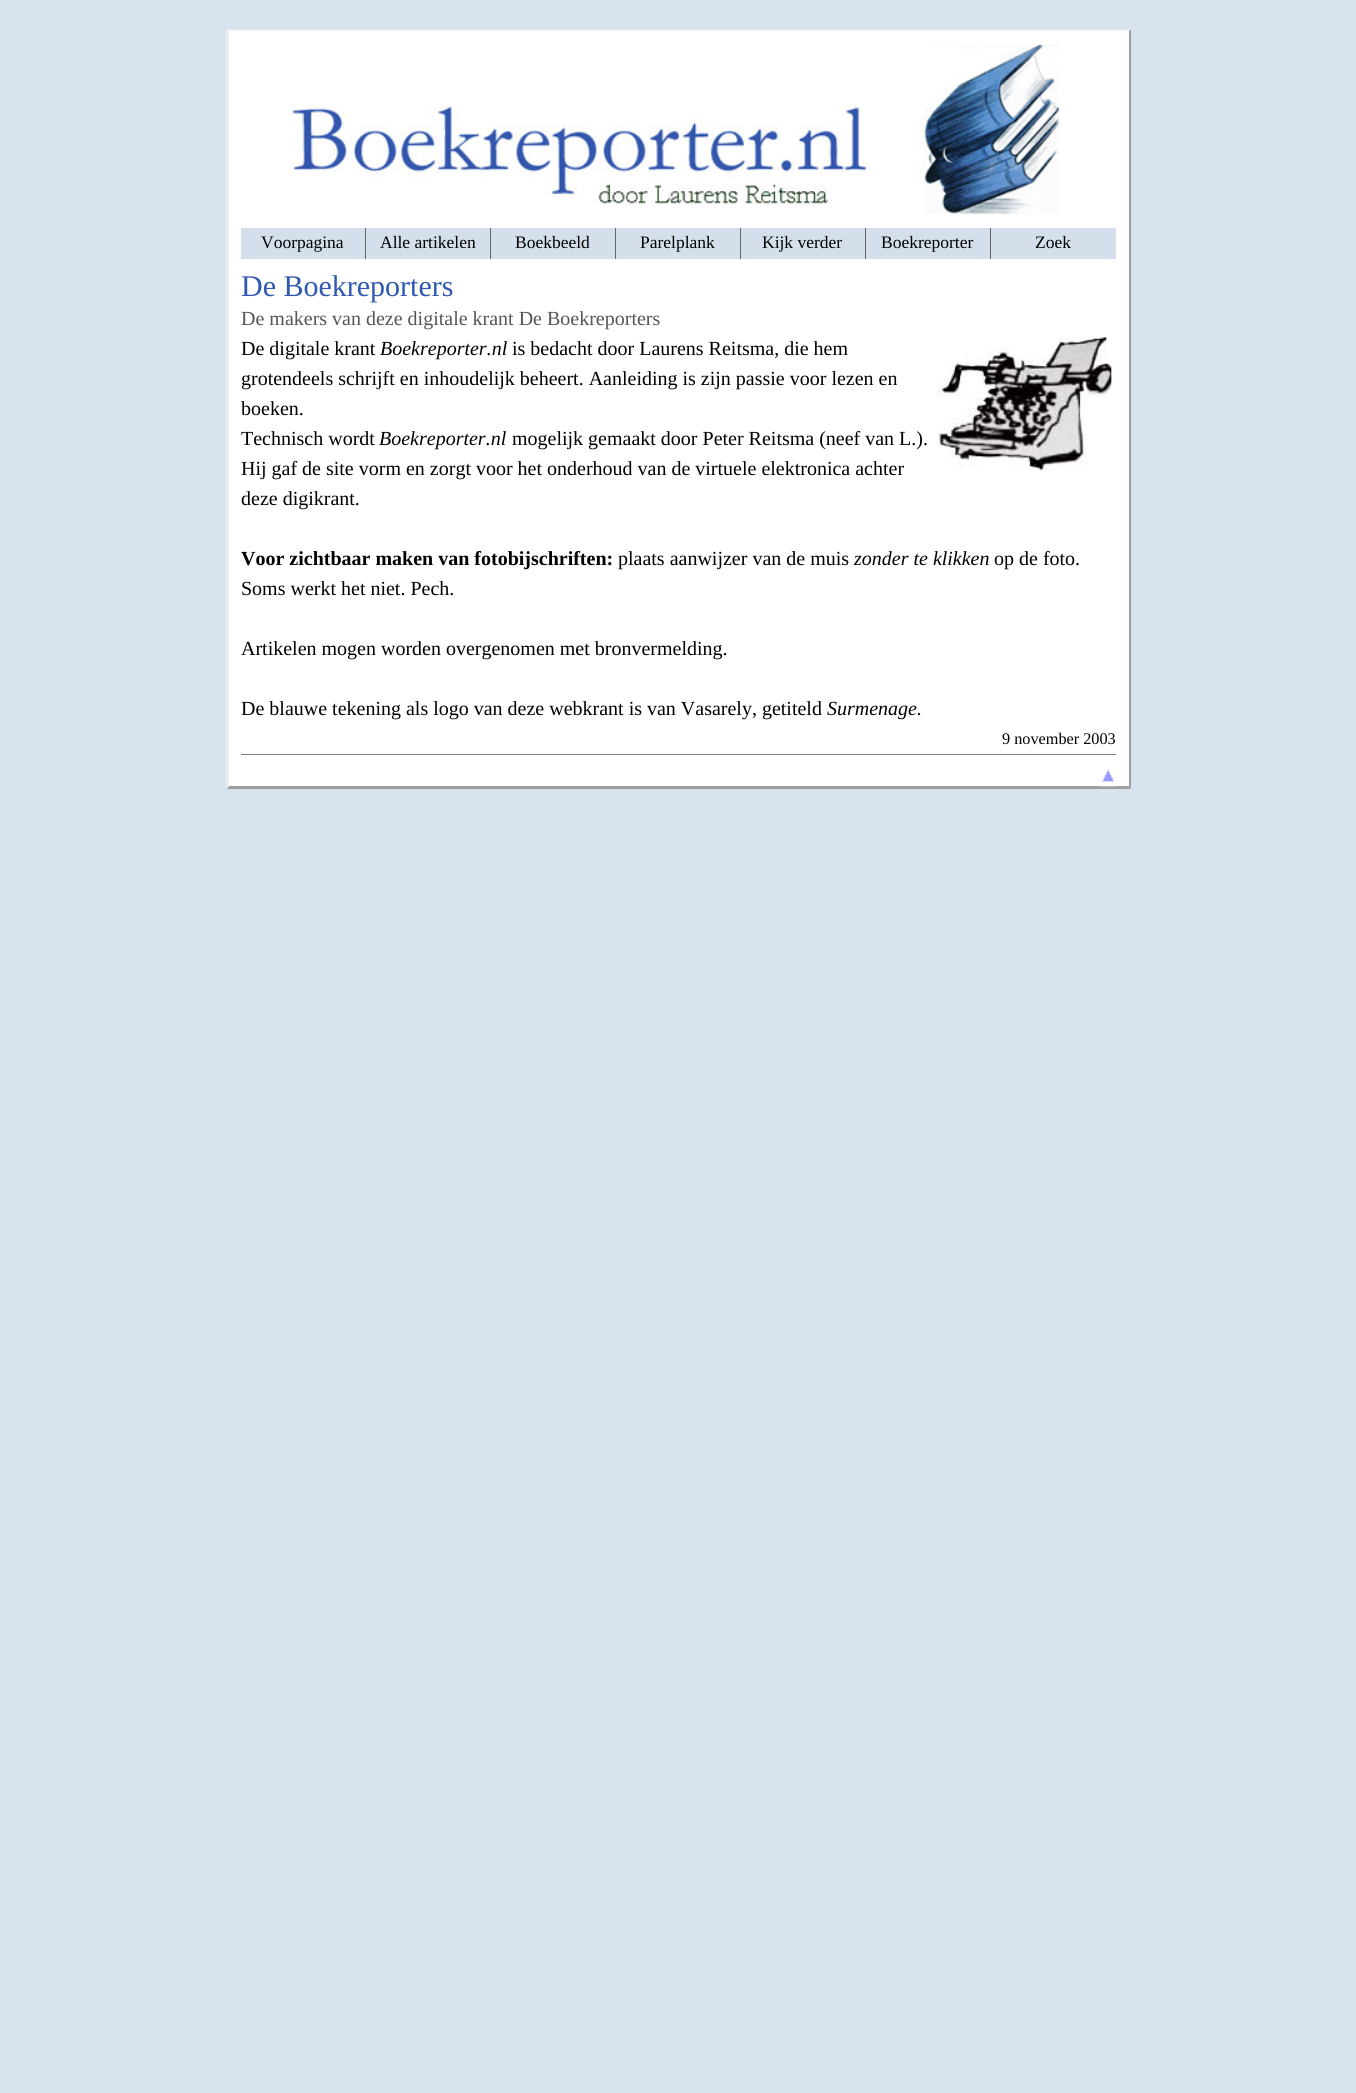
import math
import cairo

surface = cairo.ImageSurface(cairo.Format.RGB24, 1356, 2093)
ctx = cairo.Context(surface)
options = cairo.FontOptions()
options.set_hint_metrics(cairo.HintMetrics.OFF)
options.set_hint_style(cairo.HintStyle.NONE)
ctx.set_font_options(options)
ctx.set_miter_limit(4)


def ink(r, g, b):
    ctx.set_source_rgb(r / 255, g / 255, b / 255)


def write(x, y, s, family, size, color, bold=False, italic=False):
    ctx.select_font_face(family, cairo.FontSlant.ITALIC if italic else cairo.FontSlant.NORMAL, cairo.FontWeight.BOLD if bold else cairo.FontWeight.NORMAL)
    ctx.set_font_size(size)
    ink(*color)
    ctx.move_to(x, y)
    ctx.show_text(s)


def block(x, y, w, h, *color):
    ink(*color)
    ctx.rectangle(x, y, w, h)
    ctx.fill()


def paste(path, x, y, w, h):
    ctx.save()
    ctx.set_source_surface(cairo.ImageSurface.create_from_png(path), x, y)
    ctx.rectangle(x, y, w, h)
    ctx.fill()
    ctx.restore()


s1 = dict(family="Liberation Serif", size=17.5, color=(0, 0, 0))
s2 = dict(family="Liberation Serif", size=30, color=(47, 88, 176))
s3 = dict(family="Liberation Serif", size=20, color=(85, 85, 85))
s4 = dict(family="Liberation Serif", size=20, color=(0, 0, 0))
s5 = dict(family="Liberation Serif", size=20, color=(0, 0, 0), italic=True)
s6 = dict(family="Liberation Serif", size=20, color=(0, 0, 0), bold=True)
s7 = dict(family="Liberation Serif", size=16.25, color=(0, 0, 0))

ink(215, 228, 239)
ctx.paint()
block(226, 29, 905, 760, 255, 255, 255)
ink(238, 238, 238)
ctx.new_path()
ctx.move_to(226, 29)
ctx.line_to(1131, 29)
ctx.line_to(1129, 31)
ctx.line_to(229, 31)
ctx.close_path()
ctx.fill()
ink(159, 159, 159)
ctx.new_path()
ctx.move_to(1131, 29)
ctx.line_to(1131, 789)
ctx.line_to(1129, 786)
ctx.line_to(1129, 31)
ctx.close_path()
ctx.fill()
ctx.new_path()
ctx.move_to(1131, 789)
ctx.line_to(226, 789)
ctx.line_to(229, 786)
ctx.line_to(1129, 786)
ctx.close_path()
ctx.fill()
ink(238, 238, 238)
ctx.new_path()
ctx.move_to(226, 789)
ctx.line_to(226, 29)
ctx.line_to(229, 31)
ctx.line_to(229, 786)
ctx.close_path()
ctx.fill()
paste("pic1.png", 289, 43, 772, 172)
block(1115, 228, 1, 31, 215, 228, 239)
block(241, 228, 124, 31, 212, 223, 235)
write(261, 248, "Voorpagina", **s1)
block(366, 228, 124, 31, 212, 223, 235)
block(365, 228, 1, 31, 102, 102, 102)
write(380, 248, "Alle artikelen", **s1)
block(491, 228, 124, 31, 212, 223, 235)
block(490, 228, 1, 31, 102, 102, 102)
write(515, 248, "Boekbeeld", **s1)
block(616, 228, 124, 31, 212, 223, 235)
block(615, 228, 1, 31, 102, 102, 102)
write(640, 248, "Parelplank", **s1)
block(741, 228, 124, 31, 212, 223, 235)
block(740, 228, 1, 31, 102, 102, 102)
write(762, 248, "Kijk verder", **s1)
block(866, 228, 124, 31, 212, 223, 235)
block(865, 228, 1, 31, 102, 102, 102)
write(881, 248, "Boekreporter", **s1)
block(991, 228, 124, 31, 212, 223, 235)
block(990, 228, 1, 31, 102, 102, 102)
write(1035, 248, "Zoek", **s1)
write(241, 296, "De Boekreporters", **s2)
write(241, 325, "De makers van deze digitale krant De Boekreporters", **s3)
write(241, 355, "De digitale krant", **s4)
write(380, 355, "Boekreporter.nl", **s5)
write(512, 355, "is bedacht door Laurens Reitsma, die hem", **s4)
paste("pic2.png", 937, 337, 176, 134)
write(241, 385, "grotendeels schrijft en inhoudelijk beheert. Aanleiding is zijn passie voor lezen en", **s4)
write(241, 415, "boeken.", **s4)
write(241, 445, "Technisch wordt", **s4)
write(379, 445, "Boekreporter.nl", **s5)
write(512, 445, "mogelijk gemaakt door Peter Reitsma (neef van L.).", **s4)
write(241, 475, "Hij gaf de site vorm en zorgt voor het onderhoud van de virtuele elektronica achter", **s4)
write(241, 505, "deze digikrant.", **s4)
write(241, 565, "Voor zichtbaar maken van fotobijschriften:", **s6)
write(618, 565, "plaats aanwijzer van de muis", **s4)
write(854, 565, "zonder te klikken", **s5)
write(994, 565, "op de foto.", **s4)
write(241, 595, "Soms werkt het niet. Pech.", **s4)
write(241, 655, "Artikelen mogen worden overgenomen met bronvermelding.", **s4)
write(241, 715, "De blauwe tekening als logo van deze webkrant is van Vasarely, getiteld", **s4)
write(827, 715, "Surmenage.", **s5)
block(241, 754, 875, 1, 128, 128, 128)
write(1002, 744, "9 november 2003", **s7)
paste("pic3.png", 1100, 770, 17, 17)
surface.write_to_png("screenshot.png")
